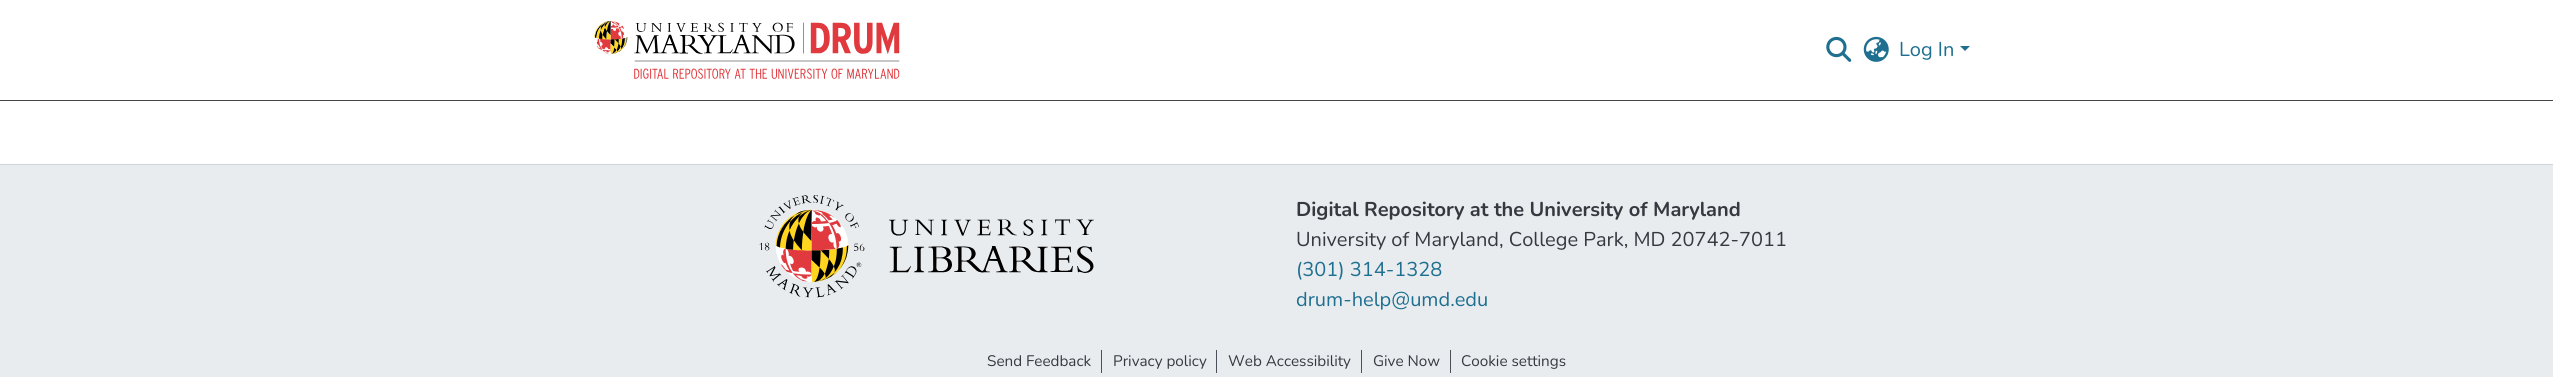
import math
import cairo

surface = cairo.ImageSurface(cairo.Format.RGB24, 2553, 377)
ctx = cairo.Context(surface)
options = cairo.FontOptions()
options.set_hint_metrics(cairo.HintMetrics.OFF)
options.set_hint_style(cairo.HintStyle.NONE)
ctx.set_font_options(options)
ctx.set_miter_limit(4)


def ink(r, g, b):
    ctx.set_source_rgb(r / 255, g / 255, b / 255)


def write(x, y, s, family, size, color, bold=False, italic=False):
    ctx.select_font_face(family, cairo.FontSlant.ITALIC if italic else cairo.FontSlant.NORMAL, cairo.FontWeight.BOLD if bold else cairo.FontWeight.NORMAL)
    ctx.set_font_size(size)
    ink(*color)
    ctx.move_to(x, y)
    ctx.show_text(s)


def block(x, y, w, h, *color):
    ink(*color)
    ctx.rectangle(x, y, w, h)
    ctx.fill()


def paste(path, x, y, w, h):
    ctx.save()
    ctx.set_source_surface(cairo.ImageSurface.create_from_png(path), x, y)
    ctx.rectangle(x, y, w, h)
    ctx.fill()
    ctx.restore()


s1 = dict(family="Nunito", size=20, color=(30, 111, 144))
s2 = dict(family="Nunito", size=20, color=(52, 58, 64), bold=True)
s3 = dict(family="Nunito", size=20, color=(52, 58, 64))
s4 = dict(family="Nunito", size=15.25, color=(52, 58, 64))

ink(255, 255, 255)
ctx.paint()
block(0, 100, 2553, 1, 69, 69, 69)
paste("pic1.png", 594, 20, 306, 59)
paste("pic2.png", 1826, 36, 26, 26)
paste("pic3.png", 1863, 36, 26, 26)
write(1899, 56, "Log In", **s1)
ctx.new_path()
ctx.move_to(1960, 46)
ctx.line_to(1970, 46)
ctx.line_to(1965, 51)
ctx.close_path()
ctx.fill()
block(0, 165, 2553, 212, 233, 236, 239)
block(0, 164, 2553, 1, 206, 212, 218)
paste("pic4.png", 759, 195, 335, 103)
write(1296, 216, "Digital Repository at the University of Maryland", **s2)
write(1296, 246, "University of Maryland, College Park, MD 20742-7011", **s3)
write(1296, 276, "(301) 314-1328", **s1)
write(1296, 306, "drum-help@umd.edu", **s1)
write(987, 366, "Send Feedback", **s4)
block(1101, 350, 1, 23, 73, 80, 87)
write(1113, 366, "Privacy policy", **s4)
block(1216, 350, 1, 23, 73, 80, 87)
write(1228, 366, "Web Accessibility", **s4)
block(1361, 350, 1, 23, 73, 80, 87)
write(1373, 366, "Give Now", **s4)
block(1450, 350, 1, 23, 73, 80, 87)
write(1461, 366, "Cookie settings", **s4)
surface.write_to_png("screenshot.png")
